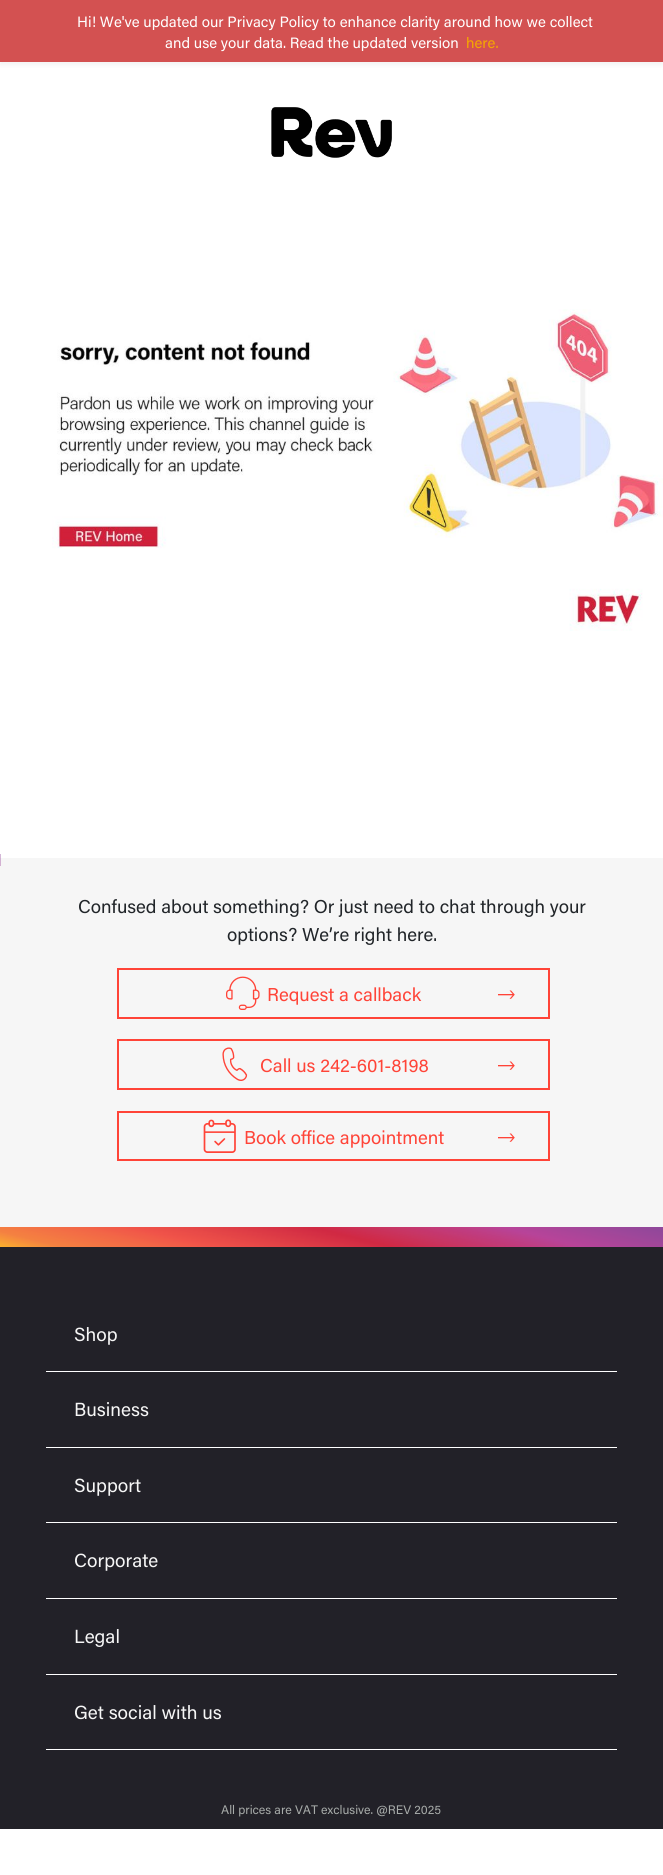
import math
import cairo

surface = cairo.ImageSurface(cairo.Format.RGB24, 663, 1875)
ctx = cairo.Context(surface)
options = cairo.FontOptions()
options.set_hint_metrics(cairo.HintMetrics.OFF)
options.set_hint_style(cairo.HintStyle.NONE)
ctx.set_font_options(options)
ctx.set_miter_limit(4)


def ink(r, g, b):
    ctx.set_source_rgb(r / 255, g / 255, b / 255)


def write(x, y, s, family, size, color, bold=False, italic=False):
    ctx.select_font_face(family, cairo.FontSlant.ITALIC if italic else cairo.FontSlant.NORMAL, cairo.FontWeight.BOLD if bold else cairo.FontWeight.NORMAL)
    ctx.set_font_size(size)
    ink(*color)
    ctx.move_to(x, y)
    ctx.show_text(s)


def block(x, y, w, h, *color):
    ink(*color)
    ctx.rectangle(x, y, w, h)
    ctx.fill()


def round_path(x, y, w, h, r):
    ctx.new_sub_path()
    for i, (u, v) in enumerate([(x + w - r, y + h - r), (x + r, y + h - r), (x + r, y + r), (x + w - r, y + r)]):
        ctx.arc(u, v, r, i * math.pi / 2, (i + 1) * math.pi / 2)
    ctx.close_path()


def blur_box(x, y, w, h, r, blur, alpha):
    ctx.push_group_with_content(cairo.Content.ALPHA)
    ctx.set_operator(cairo.Operator.SOURCE)
    for i in range(15, -16, -2):
        e = blur * i / 6
        if min(w, h) + 2 * e > 0:
            ctx.set_source_rgba(0, 0, 0, alpha * math.erfc((i - 1) / 8.5) / 2)
            round_path(x - e, y - e, w + 2 * e, h + 2 * e, max(0, min(r + e + blur * .6, min(w, h) / 2 + e)))
            ctx.fill()
    ctx.mask(ctx.pop_group())


def paste(path, x, y, w, h):
    ctx.save()
    ctx.set_source_surface(cairo.ImageSurface.create_from_png(path), x, y)
    ctx.rectangle(x, y, w, h)
    ctx.fill()
    ctx.restore()


s1 = dict(family="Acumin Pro", size=15, color=(255, 255, 255))
s2 = dict(family="Acumin Pro", size=15, color=(244, 167, 0))
s3 = dict(family="Acumin Pro", size=18.65, color=(33, 37, 41))
s4 = dict(family="Acumin Pro", size=18.65, color=(255, 68, 56))
s5 = dict(family="Acumin Pro", size=19, color=(246, 246, 246))
s6 = dict(family="Acumin Pro", size=12.4, color=(167, 171, 169))

ink(255, 255, 255)
ctx.paint()
ink(0, 0, 0)
blur_box(0, 3, 663, 62, 0, 2, 0.05)
block(0, 0, 663, 62, 211, 81, 81)
write(77, 27, "Hi! We've updated our Privacy Policy to enhance clarity around how we collect", **s1)
write(165, 48, "and use your data. Read the updated version", **s1)
write(466, 48, "here.", **s2)
paste("pic1.png", 271, 107, 121, 51)
paste("pic2.png", 52, 309, 611, 322)
block(0, 858, 663, 369, 246, 246, 246)
paste("pic3.png", 0, 854, 1, 12)
write(78, 913, "Confused about something? Or just need to chat through your", **s3)
write(227, 941, "options? We’re right here.", **s3)
ctx.rectangle(118, 969, 431, 49)
ink(255, 68, 56)
ctx.stroke()
paste("pic4.png", 226, 976, 34, 34)
write(267, 1001, "Request a callback", **s4)
paste("pic5.png", 498, 990, 17, 9)
ctx.rectangle(118, 1040, 431, 49)
ctx.stroke()
paste("pic6.png", 222, 1047, 26, 34)
write(260, 1072, "Call us 242-601-8198", **s4)
paste("pic5.png", 498, 1061, 17, 9)
ctx.rectangle(118, 1112, 431, 48)
ctx.stroke()
paste("pic7.png", 203, 1119, 33, 34)
write(244, 1144, "Book office appointment", **s4)
paste("pic5.png", 498, 1133, 17, 9)
block(0, 1247, 663, 582, 34, 33, 40)
paste("pic8.png", 0, 1227, 663, 20)
block(46, 1371, 571, 1, 255, 255, 255)
write(74, 1341, "Shop", **s5)
block(46, 1447, 571, 1, 255, 255, 255)
write(74, 1416, "Business", **s5)
block(46, 1522, 571, 1, 255, 255, 255)
write(74, 1492, "Support", **s5)
block(46, 1598, 571, 1, 255, 255, 255)
write(74, 1567, "Corporate", **s5)
block(46, 1674, 571, 1, 255, 255, 255)
write(74, 1643, "Legal", **s5)
block(46, 1749, 571, 1, 255, 255, 255)
write(74, 1719, "Get social with us", **s5)
write(221, 1814, "All prices are VAT exclusive. @REV 2025", **s6)
surface.write_to_png("screenshot.png")
